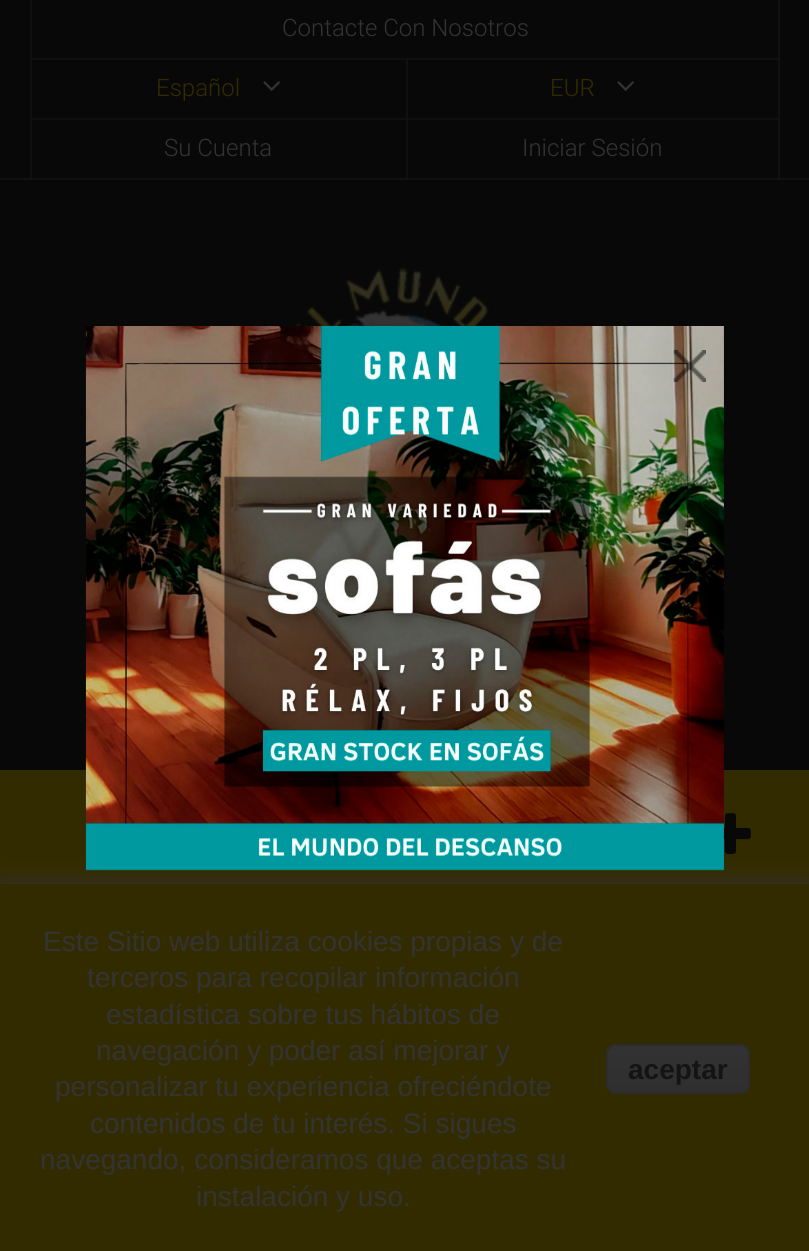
import math
import cairo

surface = cairo.ImageSurface(cairo.Format.RGB24, 809, 1251)
ctx = cairo.Context(surface)
options = cairo.FontOptions()
options.set_hint_metrics(cairo.HintMetrics.OFF)
options.set_hint_style(cairo.HintStyle.NONE)
ctx.set_font_options(options)
ctx.set_miter_limit(4)


def ink(r, g, b):
    ctx.set_source_rgb(r / 255, g / 255, b / 255)


def write(x, y, s, family, size, color, bold=False, italic=False):
    ctx.select_font_face(family, cairo.FontSlant.ITALIC if italic else cairo.FontSlant.NORMAL, cairo.FontWeight.BOLD if bold else cairo.FontWeight.NORMAL)
    ctx.set_font_size(size)
    ink(*color)
    ctx.move_to(x, y)
    ctx.show_text(s)


def block(x, y, w, h, *color):
    ink(*color)
    ctx.rectangle(x, y, w, h)
    ctx.fill()


def round_path(x, y, w, h, r):
    ctx.new_sub_path()
    for i, (u, v) in enumerate([(x + w - r, y + h - r), (x + r, y + h - r), (x + r, y + r), (x + w - r, y + r)]):
        ctx.arc(u, v, r, i * math.pi / 2, (i + 1) * math.pi / 2)
    ctx.close_path()


def blur_box(x, y, w, h, r, blur, alpha):
    ctx.push_group_with_content(cairo.Content.ALPHA)
    ctx.set_operator(cairo.Operator.SOURCE)
    for i in range(15, -16, -2):
        e = blur * i / 6
        if min(w, h) + 2 * e > 0:
            ctx.set_source_rgba(0, 0, 0, alpha * math.erfc((i - 1) / 8.5) / 2)
            round_path(x - e, y - e, w + 2 * e, h + 2 * e, max(0, min(r + e + blur * .6, min(w, h) / 2 + e)))
            ctx.fill()
    ctx.mask(ctx.pop_group())


def paste(path, x, y, w, h):
    ctx.save()
    ctx.set_source_surface(cairo.ImageSurface.create_from_png(path), x, y)
    ctx.rectangle(x, y, w, h)
    ctx.fill()
    ctx.restore()


s1 = dict(family="Roboto Light", size=24, color=(51, 51, 51))
s2 = dict(family="Roboto Light", size=24, color=(51, 43, 0))
s3 = dict(family="Liberation Sans", size=28, color=(51, 51, 51))
s4 = dict(family="Liberation Sans", size=28, color=(20, 20, 20), bold=True)

ink(8, 8, 8)
ctx.paint()
block(778, 0, 2, 60, 16, 16, 16)
block(30, 58, 750, 2, 16, 16, 16)
block(30, 0, 2, 60, 16, 16, 16)
write(282, 36, "Contacte Con Nosotros", **s1)
block(778, 60, 2, 118, 16, 16, 16)
block(30, 118, 750, 2, 16, 16, 16)
block(30, 60, 2, 60, 16, 16, 16)
write(156, 96, "Español", **s2)
paste("pic1.png", 263, 81, 17, 10)
block(406, 60, 2, 60, 16, 16, 16)
write(550, 96, "EUR", **s2)
paste("pic1.png", 617, 81, 17, 10)
block(30, 120, 2, 58, 16, 16, 16)
write(164, 156, "Su Cuenta", **s1)
block(406, 120, 2, 58, 16, 16, 16)
write(522, 156, "Iniciar Sesión", **s1)
block(0, 178, 809, 2, 16, 16, 16)
paste("pic2.png", 295, 267, 208, 59)
block(0, 770, 809, 114, 51, 43, 0)
paste("pic3.png", 723, 813, 28, 41)
ink(51, 51, 51)
blur_box(0, 884, 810, 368, 0, 10, 1)
paste("pic4.png", 85, 326, 639, 545)
paste("pic5.png", 673, 350, 33, 32)
block(0, 884, 809, 367, 51, 43, 0)
write(43, 951, "Este Sitio web utiliza cookies propias y de", **s3)
write(87, 987, "terceros para recopilar información", **s3)
write(106, 1024, "estadística sobre tus hábitos de", **s3)
write(96, 1060, "navegación y poder así mejorar y", **s3)
write(55, 1096, "personalizar tu experiencia ofreciéndote", **s3)
write(90, 1133, "contenidos de tu interés. Si sigues", **s3)
write(40, 1169, "navegando, consideramos que aceptas su", **s3)
write(196, 1206, "instalación y uso.", **s3)
ctx.save()
round_path(606, 1044, 144, 50, 10)
ctx.clip()
gradient = cairo.LinearGradient(608, 1046, 608, 1092)
gradient.add_color_stop_rgba(0.05, 0.196, 0.196, 0.196, 1)
gradient.add_color_stop_rgba(1, 0.184, 0.184, 0.184, 1)
ctx.set_source(gradient)
ctx.rectangle(606, 1046, 144, 46)
ctx.fill()
ctx.restore()
round_path(607, 1045, 142, 48, 9)
ink(44, 44, 44)
ctx.stroke()
write(628, 1079, "aceptar", **s4)
surface.write_to_png("screenshot.png")
